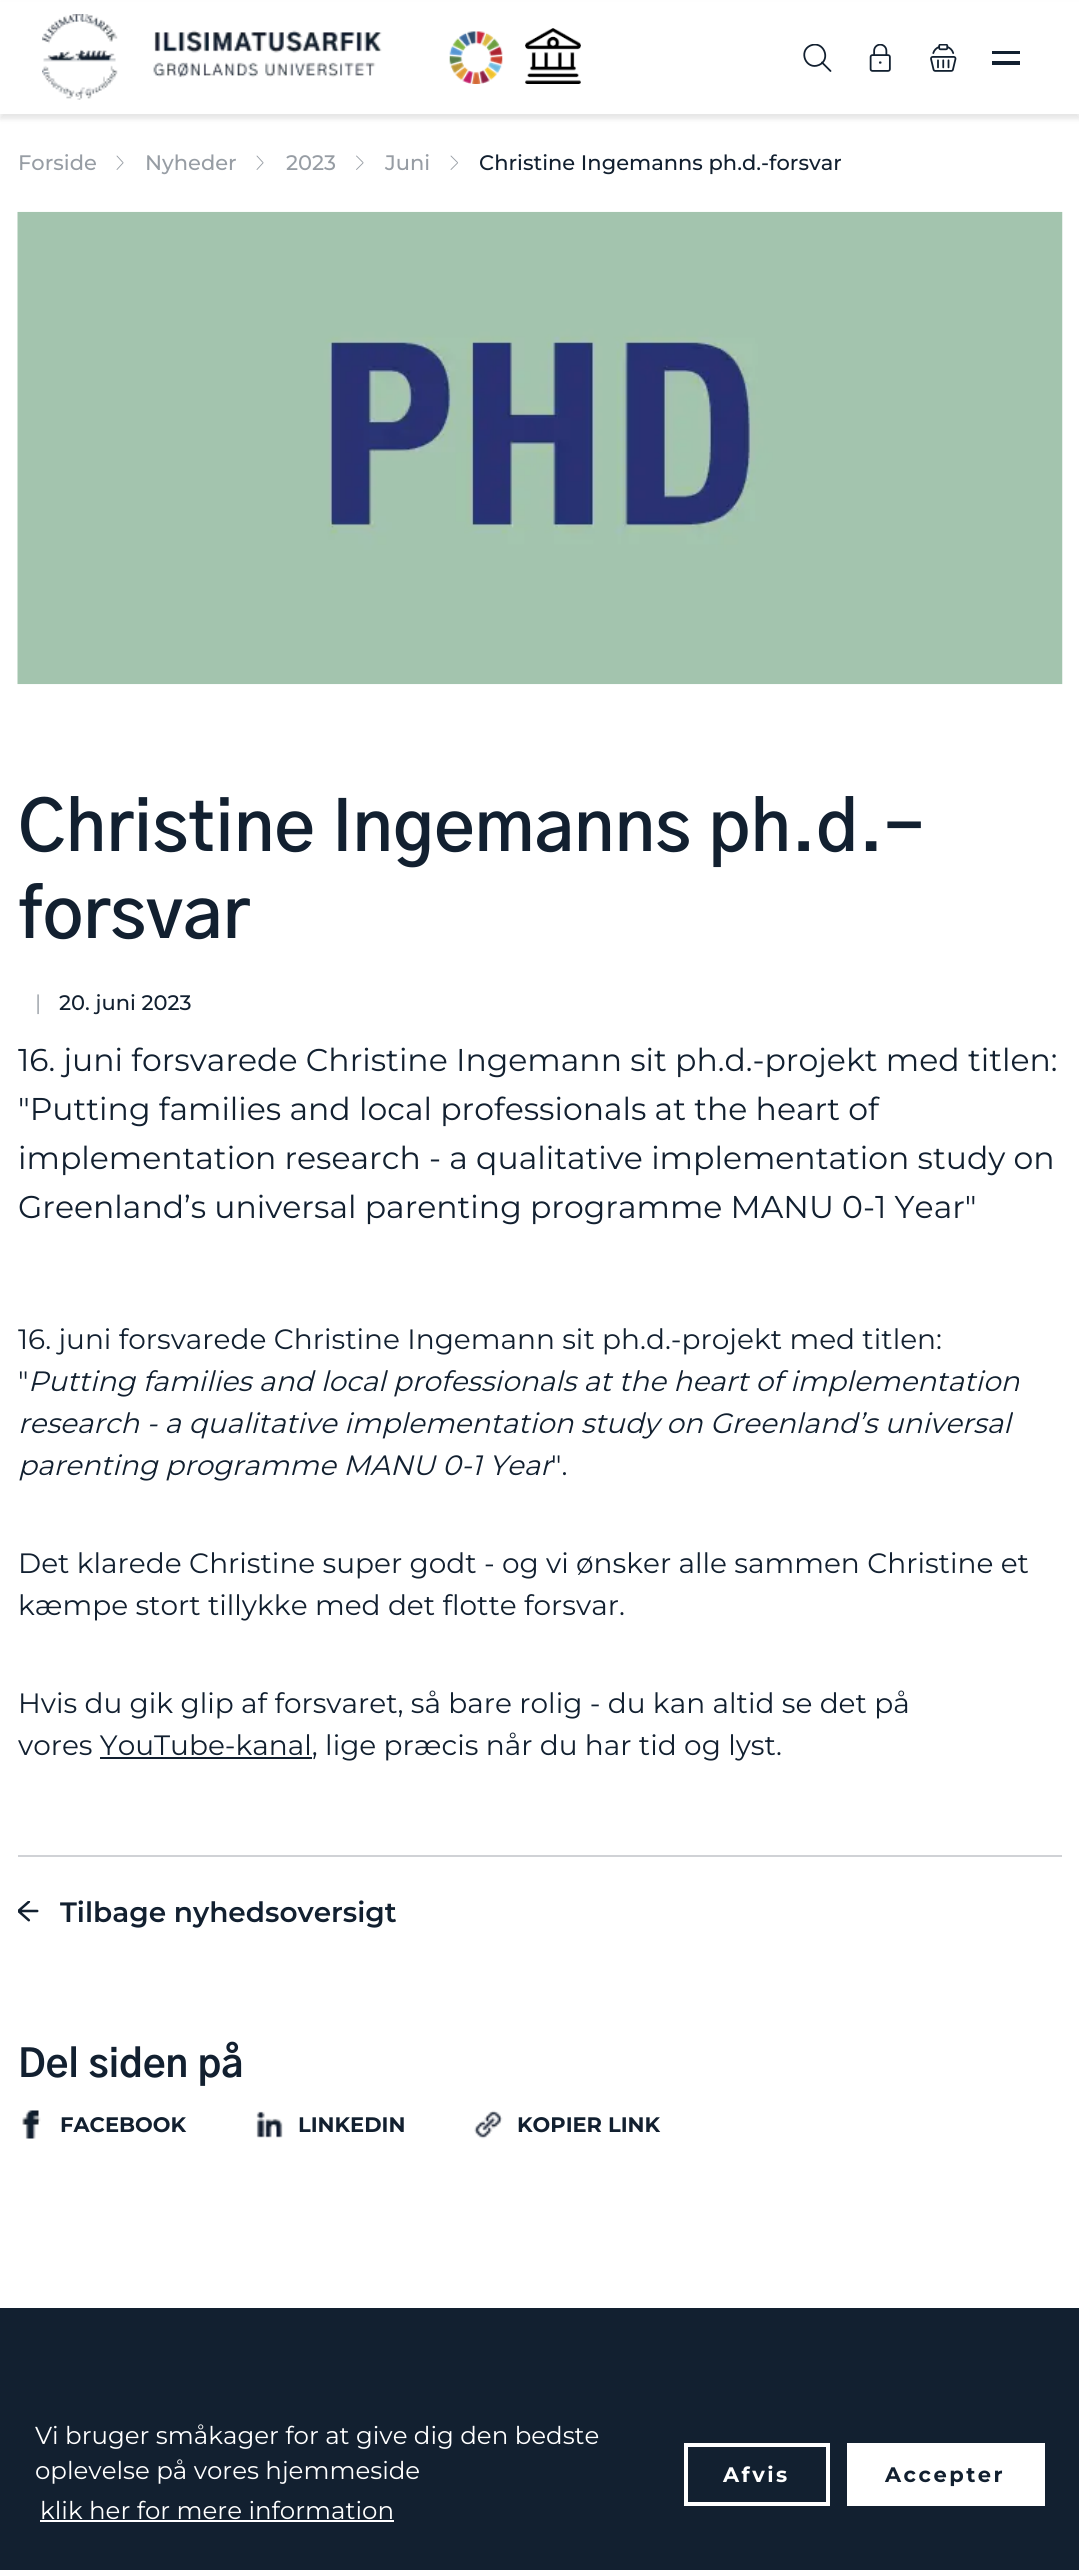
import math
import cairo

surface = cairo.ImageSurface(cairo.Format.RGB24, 1079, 2570)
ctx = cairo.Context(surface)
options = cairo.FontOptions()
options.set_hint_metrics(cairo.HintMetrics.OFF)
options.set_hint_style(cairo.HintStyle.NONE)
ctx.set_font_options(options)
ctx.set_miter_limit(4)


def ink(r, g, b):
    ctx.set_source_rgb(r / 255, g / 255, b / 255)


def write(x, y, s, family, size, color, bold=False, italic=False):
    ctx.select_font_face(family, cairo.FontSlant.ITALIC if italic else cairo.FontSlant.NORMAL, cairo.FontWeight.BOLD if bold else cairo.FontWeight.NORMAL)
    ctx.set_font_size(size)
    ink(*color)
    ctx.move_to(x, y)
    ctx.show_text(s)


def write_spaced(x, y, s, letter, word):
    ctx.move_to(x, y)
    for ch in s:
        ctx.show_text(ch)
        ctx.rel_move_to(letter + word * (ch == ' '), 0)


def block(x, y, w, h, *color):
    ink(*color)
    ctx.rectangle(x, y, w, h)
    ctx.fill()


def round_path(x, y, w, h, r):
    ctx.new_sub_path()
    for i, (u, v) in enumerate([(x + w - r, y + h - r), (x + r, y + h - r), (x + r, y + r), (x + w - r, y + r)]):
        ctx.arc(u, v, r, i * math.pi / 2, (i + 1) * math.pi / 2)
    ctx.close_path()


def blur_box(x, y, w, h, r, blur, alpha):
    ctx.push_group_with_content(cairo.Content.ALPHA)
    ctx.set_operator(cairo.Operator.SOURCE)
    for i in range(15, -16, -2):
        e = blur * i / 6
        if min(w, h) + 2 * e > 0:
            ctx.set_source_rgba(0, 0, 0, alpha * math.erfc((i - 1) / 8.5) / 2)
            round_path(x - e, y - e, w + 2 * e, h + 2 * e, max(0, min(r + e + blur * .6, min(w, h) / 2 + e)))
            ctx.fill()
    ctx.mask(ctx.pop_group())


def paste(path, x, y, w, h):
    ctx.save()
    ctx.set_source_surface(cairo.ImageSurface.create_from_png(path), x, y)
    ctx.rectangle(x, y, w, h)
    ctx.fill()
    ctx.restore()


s1 = dict(family="Montserrat Medium", size=21, color=(151, 157, 164))
s2 = dict(family="Montserrat Medium", size=21, color=(18, 32, 48))
s3 = dict(family="Gothic A1 SemiBold", size=70, color=(18, 32, 48))
s4 = dict(family="Montserrat", size=21, color=(151, 157, 164))
s5 = dict(family="Montserrat", size=31.5, color=(18, 32, 48))
s6 = dict(family="Montserrat", size=28, color=(18, 32, 48))
s7 = dict(family="Montserrat", size=28, color=(18, 32, 48), italic=True)
s8 = dict(family="Montserrat SemiBold", size=28, color=(18, 32, 48))
s9 = dict(family="Gothic A1", size=38.5, color=(18, 32, 48), bold=True)
s10 = dict(family="Montserrat", size=21, color=(18, 32, 48), bold=True)
s11 = dict(family="Montserrat", size=24.5, color=(255, 255, 255))

ink(255, 255, 255)
ctx.paint()
ink(0, 0, 0)
blur_box(0, 5, 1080, 114, 0, 2.5, 0.1)
block(0, 2, 1079, 112, 255, 255, 255)
paste("pic1.png", 42, 14, 340, 86)
paste("pic2.png", 449, 31, 54, 53)
paste("pic3.png", 525, 28, 56, 56)
ctx.save()
ctx.rectangle(803, 44, 28, 28)
ctx.clip()
ctx.new_path()
ctx.move_to(819, 65)
ctx.curve_to(831.5, 59.5, 823.5, 40, 810.5, 45.5)
ctx.curve_to(798, 51, 806, 70.5, 819, 65)
ctx.close_path()
ink(18, 32, 48)
ctx.set_line_width(1.8)
ctx.set_line_cap(cairo.LineCap.ROUND)
ctx.set_line_join(cairo.LineJoin.ROUND)
ctx.stroke()
ctx.restore()
ctx.new_path()
ctx.move_to(822, 62.5)
ctx.line_to(830.5, 71)
ink(18, 32, 48)
ctx.set_line_width(1.8)
ctx.set_line_cap(cairo.LineCap.ROUND)
ctx.set_line_join(cairo.LineJoin.ROUND)
ctx.stroke()
paste("pic4.png", 869, 44, 22, 28)
paste("pic5.png", 930, 44, 27, 28)
block(992, 51, 28, 3, 18, 32, 48)
block(992, 61, 28, 4, 18, 32, 48)
write(18, 170, "Forside", **s1)
ctx.new_path()
ctx.move_to(117, 156)
ctx.line_to(122, 161.5)
ctx.curve_to(123.5, 163, 123.5, 162.5, 122, 164)
ctx.line_to(117, 169.5)
ctx.set_line_width(0.9)
ctx.stroke()
write(145, 170, "Nyheder", **s1)
ctx.new_path()
ctx.move_to(257, 156)
ctx.line_to(262, 161.5)
ctx.curve_to(263.5, 163, 263.5, 162.5, 262, 164)
ctx.line_to(257, 169.5)
ctx.stroke()
write(286, 170, "2023", **s1)
ctx.new_path()
ctx.move_to(356.5, 156)
ctx.line_to(362, 161.5)
ctx.curve_to(363.5, 163, 363.5, 162.5, 362, 164)
ctx.line_to(356.5, 169.5)
ctx.stroke()
write(385, 170, "Juni", **s1)
ctx.new_path()
ctx.move_to(451, 156)
ctx.line_to(456.5, 161.5)
ctx.curve_to(458, 163, 458, 162.5, 456.5, 164)
ctx.line_to(451, 169.5)
ctx.stroke()
write(479, 170, "Christine Ingemanns ph.d.-forsvar", **s2)
paste("pic6.png", 17, 211, 1046, 474)
write(18, 851, "Christine Ingemanns ph.d.-", **s3)
write(18, 938, "forsvar", **s3)
write(35, 1010, "|", **s4)
write(59, 1010, "20. juni 2023", **s2)
write(18, 1071, "16. juni forsvarede Christine Ingemann sit ph.d.-projekt med titlen:", **s5)
write(18, 1120, "\"Putting families and local professionals at the heart of", **s5)
write(18, 1169, "implementation research - a qualitative implementation study on", **s5)
write(18, 1218, "Greenland’s universal parenting programme MANU 0-1 Year\"", **s5)
write(18, 1349, "16. juni forsvarede Christine Ingemann sit ph.d.-projekt med titlen:", **s6)
write(18, 1391, "\"", **s6)
write(28, 1391, "Putting families and local professionals at the heart of implementation", **s7)
write(18, 1433, "research - a qualitative implementation study on Greenland’s universal", **s7)
write(18, 1475, "parenting programme MANU 0-1 Year", **s7)
write(551, 1475, "\".", **s6)
write(18, 1573, "Det klarede Christine super godt - og vi ønsker alle sammen Christine et", **s6)
write(18, 1615, "kæmpe stort tillykke med det flotte forsvar.", **s6)
write(18, 1713, "Hvis du gik glip af forsvaret, så bare rolig - du kan altid se det på", **s6)
write(18, 1755, "vores YouTube-kanal, lige præcis når du har tid og lyst.", **s6)
block(100, 1757, 212, 2, 18, 32, 48)
block(18, 1855, 1044, 2, 208, 210, 214)
paste("pic7.png", 18, 1901, 21, 21)
write(60, 1922, "Tilbage nyhedsoversigt", **s8)
write(18, 2077, "Del siden på", **s9)
paste("pic8.png", 22, 2110, 19, 29)
write(60, 2132, "FACEBOOK", **s10)
paste("pic9.png", 256, 2111, 27, 27)
write(298, 2132, "LINKEDIN", **s10)
paste("pic10.png", 474, 2110, 29, 29)
write(517, 2132, "KOPIER LINK", **s10)
block(0, 2308, 1079, 262, 18, 32, 48)
write(35, 2444, "Vi bruger småkager for at give dig den bedste", **s11)
write(35, 2479, "oplevelse på vores hjemmeside", **s11)
write(40, 2519, "klik her for mere information", **s11)
block(40, 2520, 354, 2, 255, 255, 255)
ctx.rectangle(686, 2445, 142, 59)
ctx.set_line_width(4)
ctx.set_line_cap(cairo.LineCap.BUTT)
ctx.set_line_join(cairo.LineJoin.MITER)
ctx.stroke()
ctx.select_font_face("Montserrat", cairo.FontSlant.NORMAL, cairo.FontWeight.BOLD)
ctx.set_font_size(21)
write_spaced(723, 2482, "Afvis", 2.5, 0)
block(847, 2443, 198, 63, 255, 255, 255)
ink(18, 32, 48)
write_spaced(885, 2482, "Accepter", 2.5, 0)
surface.write_to_png("screenshot.png")
